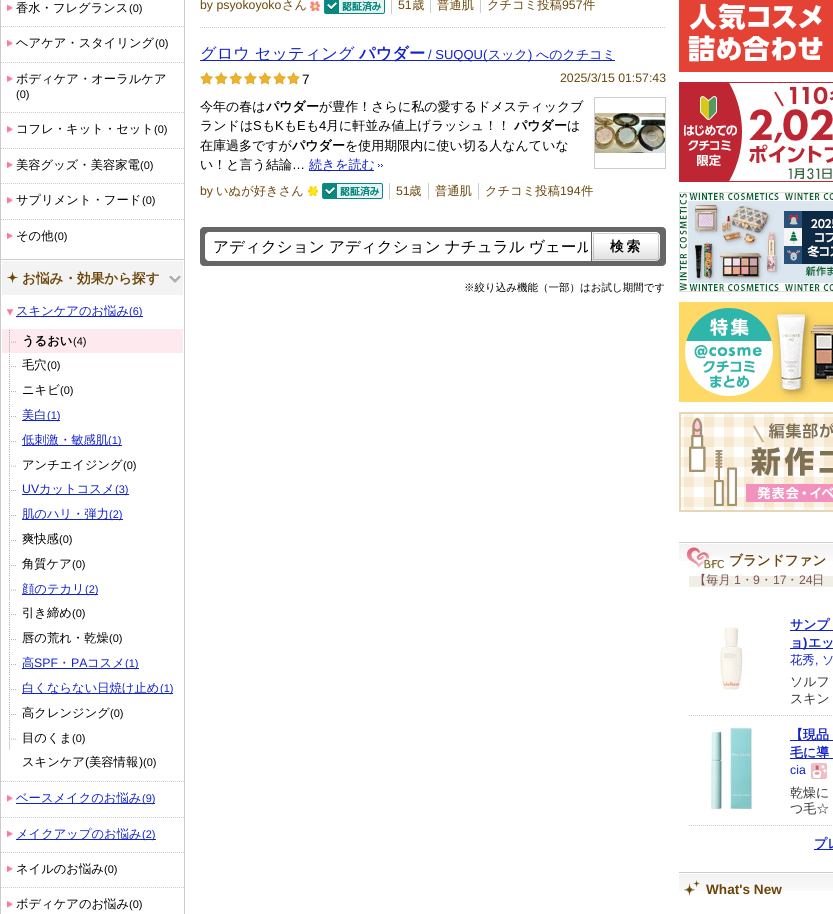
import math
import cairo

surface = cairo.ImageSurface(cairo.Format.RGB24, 833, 914)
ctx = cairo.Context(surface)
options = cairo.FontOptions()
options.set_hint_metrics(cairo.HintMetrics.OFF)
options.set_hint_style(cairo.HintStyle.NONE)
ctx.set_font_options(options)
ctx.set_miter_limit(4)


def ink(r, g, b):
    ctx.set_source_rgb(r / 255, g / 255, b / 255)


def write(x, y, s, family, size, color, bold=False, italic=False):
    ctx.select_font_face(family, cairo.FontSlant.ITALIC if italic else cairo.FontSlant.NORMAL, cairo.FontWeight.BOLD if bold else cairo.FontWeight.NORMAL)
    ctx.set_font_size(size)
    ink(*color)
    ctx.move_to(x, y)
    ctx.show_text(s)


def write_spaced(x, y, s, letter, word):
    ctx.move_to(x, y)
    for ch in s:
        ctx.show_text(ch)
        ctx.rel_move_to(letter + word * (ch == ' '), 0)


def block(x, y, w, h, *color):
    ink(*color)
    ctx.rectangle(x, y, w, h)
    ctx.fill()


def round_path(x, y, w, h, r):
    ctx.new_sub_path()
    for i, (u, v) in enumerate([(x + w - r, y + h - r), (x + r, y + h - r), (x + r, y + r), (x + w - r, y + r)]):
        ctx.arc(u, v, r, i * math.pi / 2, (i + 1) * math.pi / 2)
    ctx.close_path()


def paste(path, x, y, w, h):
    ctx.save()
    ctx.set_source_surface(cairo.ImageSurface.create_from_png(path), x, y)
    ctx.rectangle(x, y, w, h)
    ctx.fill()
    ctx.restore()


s1 = dict(family="WenQuanYi Zen Hei Medium", size=12.3, color=(0, 0, 0))
s2 = dict(family="Liberation Sans", size=11, color=(0, 0, 0))
s3 = dict(family="WenQuanYi Zen Hei", size=13.6, color=(108, 69, 9), bold=True)
s4 = dict(family="WenQuanYi Zen Hei Medium", size=12.3, color=(17, 34, 204))
s5 = dict(family="Liberation Sans", size=11, color=(17, 34, 204))
s6 = dict(family="WenQuanYi Zen Hei", size=12.3, color=(0, 0, 0), bold=True)
s7 = dict(family="Liberation Sans", size=12.3, color=(17, 34, 204))
s8 = dict(family="Liberation Sans", size=12.3, color=(0, 0, 0))
s9 = dict(family="Liberation Sans", size=12.3, color=(108, 69, 9))
s10 = dict(family="WenQuanYi Zen Hei Medium", size=12.3, color=(108, 69, 9))
s11 = dict(family="WenQuanYi Zen Hei Medium", size=16.25, color=(17, 34, 204))
s12 = dict(family="WenQuanYi Zen Hei", size=16.25, color=(17, 34, 204), bold=True)
s13 = dict(family="Liberation Sans", size=13, color=(17, 34, 204))
s14 = dict(family="WenQuanYi Zen Hei Medium", size=13, color=(17, 34, 204))
s15 = dict(family="Liberation Sans", size=13.6, color=(0, 0, 0))
s16 = dict(family="WenQuanYi Zen Hei Medium", size=13, color=(0, 0, 0))
s17 = dict(family="WenQuanYi Zen Hei", size=13, color=(0, 0, 0), bold=True)
s18 = dict(family="Liberation Sans", size=13, color=(0, 0, 0))
s19 = dict(family="WenQuanYi Zen Hei Medium", size=10.5, color=(0, 0, 0))
s20 = dict(family="WenQuanYi Zen Hei Medium", size=12.3, color=(119, 85, 85))
s21 = dict(family="Liberation Sans", size=12.3, color=(119, 85, 85))
s22 = dict(family="WenQuanYi Zen Hei", size=13, color=(17, 34, 204), bold=True)
s23 = dict(family="Liberation Sans", size=13, color=(17, 34, 204), bold=True)
s24 = dict(family="WenQuanYi Zen Hei Medium", size=13, color=(51, 51, 51))
s25 = dict(family="Liberation Sans", size=13.6, color=(108, 69, 9), bold=True)

ink(255, 255, 255)
ctx.paint()
block(184, 0, 1, 914, 204, 204, 204)
block(0, 259, 185, 1, 204, 204, 204)
block(0, 0, 1, 914, 204, 204, 204)
paste("pic1.png", 7, 4, 6, 7)
write(16, 12, "香水・フレグランス", **s1)
write(129, 12, "(0)", **s2)
ctx.new_path()
ctx.move_to(1, 26.5)
ctx.line_to(184, 26.5)
ink(204, 204, 204)
ctx.set_line_width(1)
ctx.set_dash([1, 1])
ctx.stroke()
paste("pic2.png", 7, 40, 6, 7)
write(16, 47, "ヘアケア・スタイリング", **s1)
write(155, 47, "(0)", **s2)
ctx.new_path()
ctx.move_to(1, 62.5)
ctx.line_to(184, 62.5)
ink(204, 204, 204)
ctx.stroke()
paste("pic3.png", 7, 75, 6, 7)
write(16, 83, "ボディケア・オーラルケア", **s1)
write(16, 98, "(0)", **s2)
ctx.new_path()
ctx.move_to(1, 112.5)
ctx.line_to(184, 112.5)
ink(204, 204, 204)
ctx.stroke()
paste("pic2.png", 7, 126, 6, 7)
write(16, 133, "コフレ・キット・セット", **s1)
write(154, 133, "(0)", **s2)
ctx.new_path()
ctx.move_to(1, 148.5)
ctx.line_to(184, 148.5)
ink(204, 204, 204)
ctx.stroke()
paste("pic1.png", 7, 161, 6, 7)
write(16, 169, "美容グッズ・美容家電", **s1)
write(140, 169, "(0)", **s2)
ctx.new_path()
ctx.move_to(1, 183.5)
ctx.line_to(184, 183.5)
ink(204, 204, 204)
ctx.stroke()
paste("pic2.png", 7, 197, 6, 7)
write(16, 204, "サプリメント・フード", **s1)
write(142, 204, "(0)", **s2)
ctx.new_path()
ctx.move_to(1, 219.5)
ctx.line_to(184, 219.5)
ink(204, 204, 204)
ctx.stroke()
paste("pic1.png", 7, 232, 6, 7)
write(16, 240, "その他", **s1)
write(54, 240, "(0)", **s2)
block(2, 261, 181, 34, 243, 243, 243)
paste("pic4.png", 7, 270, 11, 13)
paste("pic5.png", 169, 275, 12, 8)
write(22, 283, "お悩み・効果から探す", **s3)
paste("pic6.png", 7, 309, 6, 7)
block(16, 316, 127, 1, 17, 34, 204)
write(16, 315, "スキンケアのお悩み", **s4)
write(129, 315, "(6)", **s5)
block(2, 329, 181, 24, 254, 233, 238)
paste("pic7.png", 9, 330, 7, 23)
write(22, 345, "うるおい", **s6)
write(73, 345, "(4)", **s2)
paste("pic8.png", 9, 354, 7, 24)
write(22, 369, "毛穴", **s1)
write(47, 369, "(0)", **s2)
paste("pic8.png", 9, 379, 7, 24)
write(22, 394, "ニキビ", **s1)
write(60, 394, "(0)", **s2)
paste("pic8.png", 9, 404, 7, 24)
block(22, 420, 38, 1, 17, 34, 204)
write(22, 419, "美白", **s4)
write(47, 419, "(1)", **s5)
paste("pic8.png", 9, 429, 7, 24)
block(22, 445, 86, 1, 17, 34, 204)
write(22, 444, "低刺激・敏感肌", **s4)
block(108, 445, 14, 1, 17, 34, 204)
write(108, 444, "(1)", **s5)
paste("pic9.png", 9, 454, 7, 23)
write(22, 469, "アンチエイジング", **s1)
write(123, 469, "(0)", **s2)
paste("pic8.png", 9, 478, 7, 24)
write(22, 493, "UV", **s7)
block(22, 494, 107, 1, 17, 34, 204)
write(39, 493, "カットコスメ", **s4)
write(115, 493, "(3)", **s5)
paste("pic8.png", 9, 503, 7, 24)
block(22, 519, 101, 1, 17, 34, 204)
write(22, 518, "肌のハリ・弾力", **s4)
write(109, 518, "(2)", **s5)
paste("pic8.png", 9, 528, 7, 24)
write(22, 543, "爽快感", **s1)
write(59, 543, "(0)", **s2)
paste("pic8.png", 9, 553, 7, 24)
write(22, 568, "角質ケア", **s1)
write(72, 568, "(0)", **s2)
paste("pic9.png", 9, 578, 7, 23)
block(22, 594, 76, 1, 17, 34, 204)
write(22, 593, "顔のテカリ", **s4)
write(85, 593, "(2)", **s5)
paste("pic8.png", 9, 602, 7, 24)
write(22, 617, "引き締め", **s1)
write(72, 617, "(0)", **s2)
paste("pic8.png", 9, 627, 7, 24)
write(22, 642, "唇の荒れ・乾燥", **s1)
write(109, 642, "(0)", **s2)
paste("pic8.png", 9, 652, 7, 24)
block(22, 668, 117, 1, 17, 34, 204)
write(22, 667, "高", **s4)
write(34, 667, "SPF", **s7)
write(58, 667, "・", **s4)
write(71, 667, "PA", **s7)
write(87, 667, "コスメ", **s4)
write(125, 667, "(1)", **s5)
paste("pic8.png", 9, 677, 7, 24)
block(22, 693, 151, 1, 17, 34, 204)
write(22, 692, "白くならない日焼け止め", **s4)
write(160, 692, "(1)", **s5)
paste("pic8.png", 9, 702, 7, 24)
write(22, 717, "高クレンジング", **s1)
write(110, 717, "(0)", **s2)
paste("pic9.png", 9, 727, 7, 23)
write(22, 742, "目のくま", **s1)
write(72, 742, "(0)", **s2)
write(22, 766, "スキンケア", **s1)
write(85, 766, "(", **s8)
write(89, 766, "美容情報", **s1)
write(139, 766, ")", **s8)
write(143, 766, "(0)", **s2)
ctx.new_path()
ctx.move_to(1, 781.5)
ctx.line_to(184, 781.5)
ink(204, 204, 204)
ctx.stroke()
paste("pic2.png", 7, 795, 6, 7)
block(16, 803, 139, 1, 17, 34, 204)
write(16, 802, "ベースメイクのお悩み", **s4)
write(142, 802, "(9)", **s5)
ctx.new_path()
ctx.move_to(1, 817.5)
ctx.line_to(184, 817.5)
ink(204, 204, 204)
ctx.stroke()
paste("pic1.png", 7, 830, 6, 7)
block(16, 839, 140, 1, 17, 34, 204)
write(16, 838, "メイクアップのお悩み", **s4)
write(142, 838, "(2)", **s5)
ctx.new_path()
ctx.move_to(1, 852.5)
ctx.line_to(184, 852.5)
ink(204, 204, 204)
ctx.stroke()
paste("pic1.png", 7, 865, 6, 7)
write(16, 873, "ネイルのお悩み", **s1)
write(104, 873, "(0)", **s2)
ctx.new_path()
ctx.move_to(1, 887.5)
ctx.line_to(184, 887.5)
ink(204, 204, 204)
ctx.stroke()
paste("pic2.png", 7, 901, 6, 7)
write(16, 908, "ボディケアのお悩み", **s1)
write(129, 908, "(0)", **s2)
block(391, 0, 1, 14, 204, 204, 204)
write(200, 9, "by psyokoyoko", **s9)
write(282, 9, "さん", **s10)
paste("pic10.png", 310, 1, 10, 10)
paste("pic11.png", 324, 0, 61, 14)
block(430, 0, 1, 13, 204, 204, 204)
write(398, 9, "51", **s9)
write(412, 9, "歳", **s10)
block(480, 0, 1, 13, 204, 204, 204)
write(437, 9, "普通肌", **s10)
write(487, 9, "クチコミ投稿", **s10)
write(562, 9, "957", **s9)
write(583, 9, "件", **s10)
ctx.new_path()
ctx.move_to(200, 27.5)
ctx.line_to(666, 27.5)
ink(204, 204, 204)
ctx.stroke()
block(200, 60, 415, 1, 17, 34, 204)
write(200, 59, "グロウ セッティング", **s11)
write(359, 59, "パウダー", **s12)
write(428, 59, "/ SUQQU(", **s13)
write(488, 59, "スック", **s14)
write(528, 59, ")", **s13)
write(536, 59, "へのクチコミ", **s14)
paste("pic12.png", 200, 72, 100, 13)
write(302, 84, "7", **s15)
write(560, 82, "2025/3/15 01:57:43", **s9)
write(200, 111, "今年の春は", **s16)
write(266, 111, "パウダー", **s17)
write(319, 111, "が豊作！さらに私の愛するドメスティックブ", **s16)
ctx.rectangle(594.5, 97.5, 71, 71)
ink(204, 204, 204)
ctx.set_dash([])
ctx.stroke()
paste("pic13.png", 595, 113, 70, 40)
write(200, 130, "ランドは", **s16)
write(253, 130, "S", **s18)
write(262, 130, "も", **s16)
write(275, 130, "K", **s18)
write(284, 130, "も", **s16)
write(297, 130, "E", **s18)
write(306, 130, "も", **s16)
write(319, 130, "4", **s18)
write(326, 130, "月に軒並み値上げラッシュ！！", **s16)
write(514, 130, "パウダー", **s17)
write(567, 130, "は", **s16)
write(200, 150, "在庫過多ですが", **s16)
write(292, 150, "パウダー", **s17)
write(345, 150, "を使用期限内に使い切る人なんていな", **s16)
write(200, 169, "い！と言う結論", **s16)
block(309, 170, 65, 1, 17, 34, 204)
write(309, 169, "続きを読む", **s14)
paste("pic14.png", 378, 164, 5, 3)
write(292, 169, "…", **s18)
block(389, 183, 1, 16, 204, 204, 204)
write(200, 195, "by", **s9)
write(216, 195, "いぬが好きさん", **s10)
paste("pic15.png", 308, 186, 10, 10)
paste("pic16.png", 322, 183, 61, 16)
block(428, 183, 1, 16, 204, 204, 204)
write(396, 195, "51", **s9)
write(409, 195, "歳", **s10)
block(478, 183, 1, 16, 204, 204, 204)
write(435, 195, "普通肌", **s10)
write(485, 195, "クチコミ投稿", **s10)
write(560, 195, "194", **s9)
write(581, 195, "件", **s10)
ink(102, 102, 102)
round_path(200, 227, 466, 39, 4)
ctx.fill()
ink(255, 255, 255)
ctx.new_path()
ctx.move_to(209, 232)
ctx.line_to(591, 232)
ctx.line_to(591, 261)
ctx.line_to(209, 261)
ctx.curve_to(207, 261, 205, 259, 205, 257)
ctx.line_to(205, 236)
ctx.curve_to(205, 234, 207, 232, 209, 232)
ctx.close_path()
ctx.fill()
ctx.save()
ctx.rectangle(208, 235, 380, 23)
ctx.clip()
ctx.set_font_size(15.6)
ink(0, 0, 0)
write_spaced(213, 252, "アディクション アディクション ナチュラル ヴェール", 0, -0.5)
ctx.restore()
paste("pic17.png", 592, 232, 68, 29)
ctx.select_font_face("WenQuanYi Zen Hei", cairo.FontSlant.NORMAL, cairo.FontWeight.BOLD)
ctx.set_font_size(13.6)
ink(0, 0, 0)
write_spaced(610, 251, "検索", 3, 0)
write(464, 291, "※絞り込み機能（一部）はお試し期間です", **s19)
paste("pic18.png", 679, 0, 154, 72)
paste("pic19.png", 679, 82, 154, 100)
paste("pic20.png", 679, 192, 154, 100)
paste("pic21.png", 679, 302, 154, 100)
paste("pic22.png", 679, 412, 154, 100)
paste("pic23.png", 679, 542, 154, 19)
paste("pic24.png", 687, 547, 37, 22)
write(729, 565, "ブランドファン", **s3)
block(689, 576, 144, 11, 241, 238, 232)
write(694, 584, "【毎月", **s20)
write(734, 584, "1", **s21)
write(741, 584, "・", **s20)
write(753, 584, "9", **s21)
write(760, 584, "・", **s20)
write(773, 584, "17", **s21)
write(786, 584, "・", **s20)
write(799, 584, "24", **s21)
write(812, 584, "日", **s20)
ctx.new_path()
ctx.move_to(689, 715.5)
ctx.line_to(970, 715.5)
ink(204, 204, 204)
ctx.set_dash([1, 1])
ctx.stroke()
paste("pic25.png", 720, 627, 23, 65)
block(790, 630, 43, 1, 17, 34, 204)
write(790, 629, "サンプ", **s22)
block(790, 648, 43, 1, 17, 34, 204)
write(790, 647, "ョ", **s22)
write(803, 647, ")", **s23)
write(808, 647, "エッ", **s22)
write(790, 664, "花秀", **s4)
write(815, 664, ",", **s7)
write(822, 664, "ソ", **s4)
write(790, 686, "ソルフ", **s24)
write(790, 703, "スキン", **s24)
ctx.new_path()
ctx.move_to(689, 825.5)
ctx.line_to(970, 825.5)
ink(204, 204, 204)
ctx.stroke()
paste("pic26.png", 711, 727, 42, 84)
block(790, 740, 43, 1, 17, 34, 204)
write(790, 739, "【現品", **s22)
block(790, 758, 43, 1, 17, 34, 204)
write(790, 757, "毛に導", **s22)
write(790, 774, "cia", **s7)
paste("pic27.png", 811, 763, 16, 16)
write(790, 797, "乾燥に", **s24)
write(790, 813, "つ毛☆", **s24)
block(814, 849, 19, 1, 17, 34, 204)
write(814, 848, "プレ", **s22)
paste("pic23.png", 679, 872, 154, 19)
paste("pic28.png", 684, 880, 16, 16)
write(706, 894, "What's New", **s25)
surface.write_to_png("screenshot.png")
